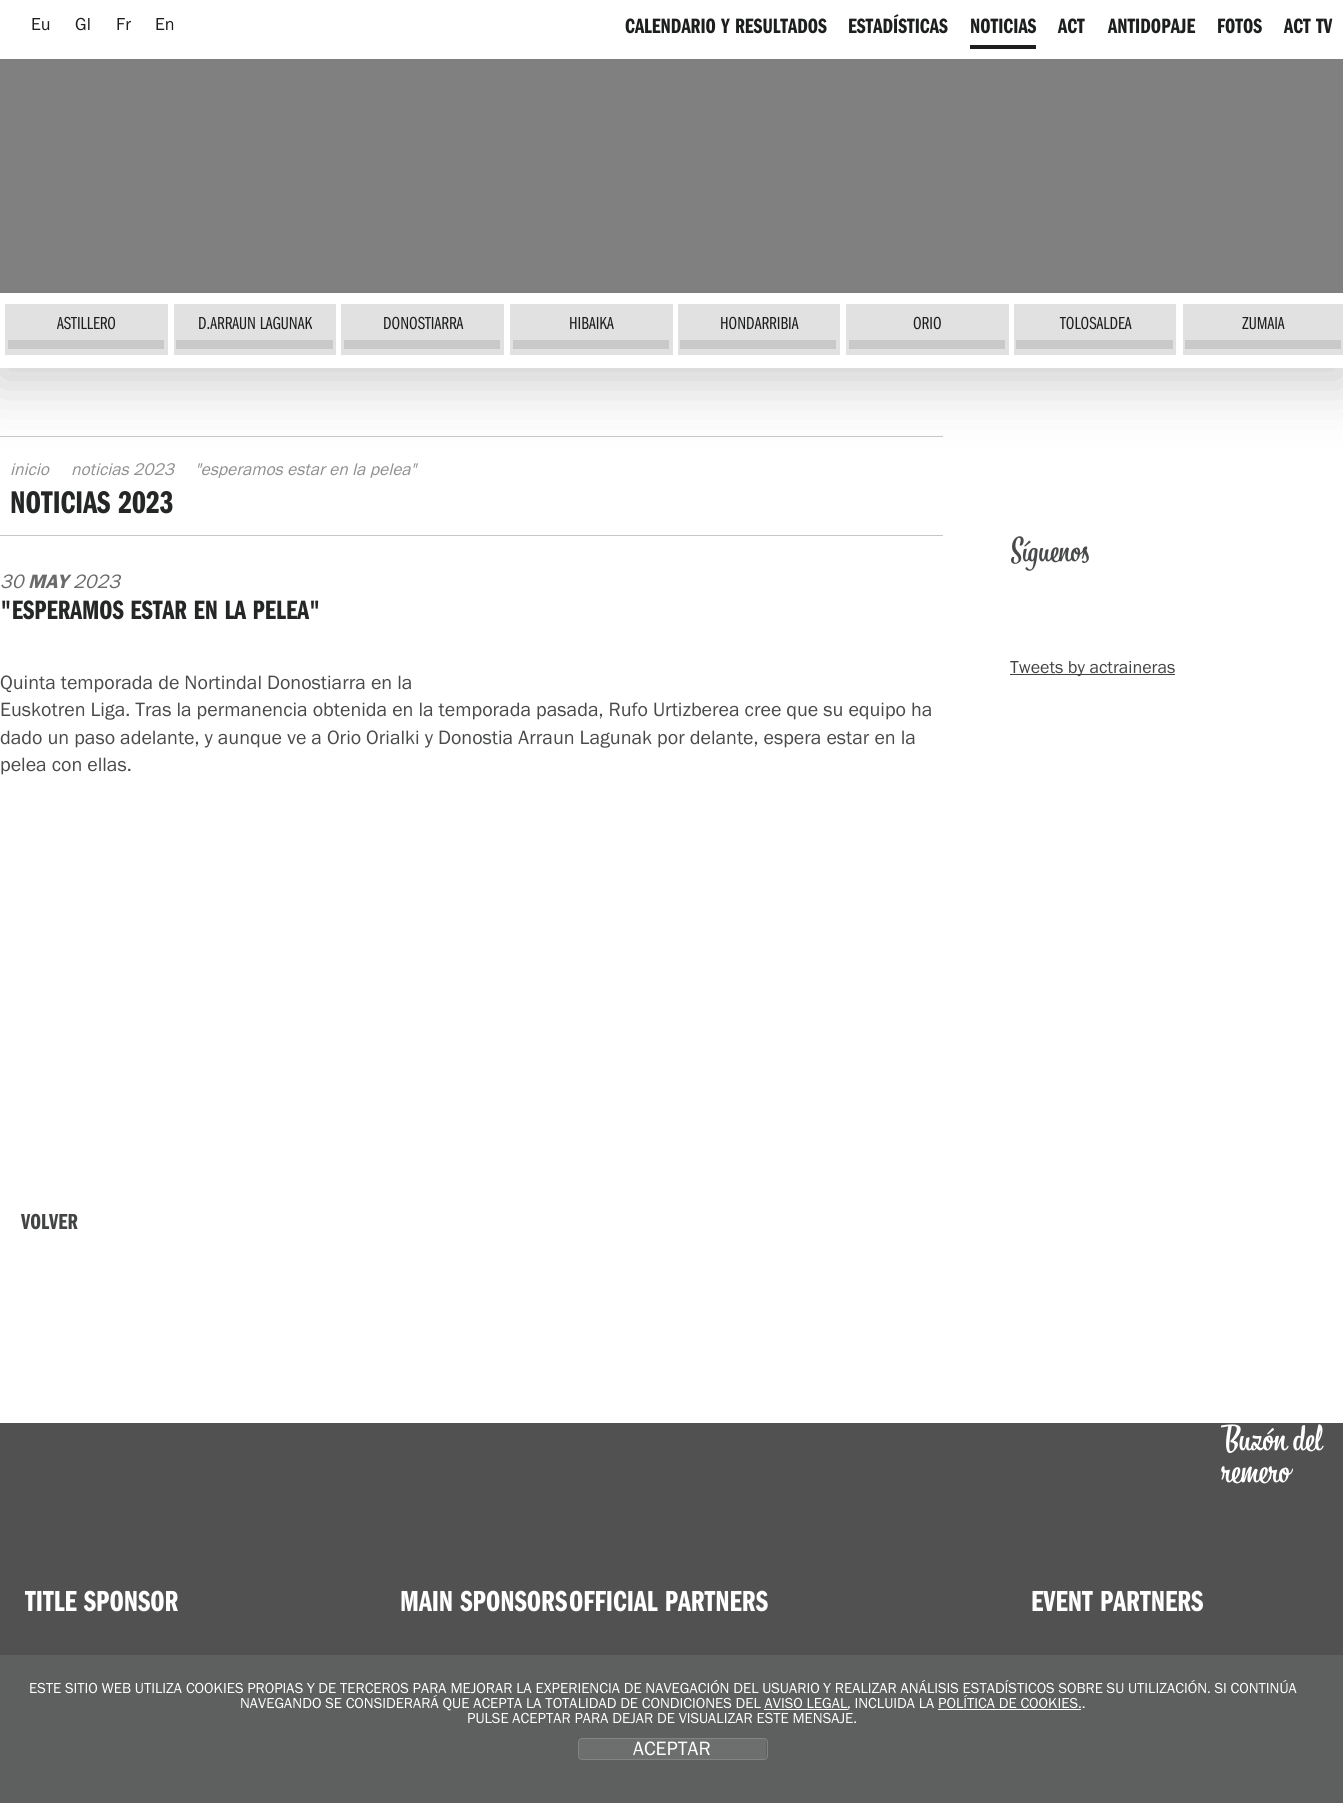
import math
import cairo

surface = cairo.ImageSurface(cairo.Format.RGB24, 1343, 1803)
ctx = cairo.Context(surface)
options = cairo.FontOptions()
options.set_hint_metrics(cairo.HintMetrics.OFF)
options.set_hint_style(cairo.HintStyle.NONE)
ctx.set_font_options(options)
ctx.set_miter_limit(4)


def ink(r, g, b):
    ctx.set_source_rgb(r / 255, g / 255, b / 255)


def write(x, y, s, family, size, color, bold=False, italic=False):
    ctx.select_font_face(family, cairo.FontSlant.ITALIC if italic else cairo.FontSlant.NORMAL, cairo.FontWeight.BOLD if bold else cairo.FontWeight.NORMAL)
    ctx.set_font_size(size)
    ink(*color)
    ctx.move_to(x, y)
    ctx.show_text(s)


def block(x, y, w, h, *color):
    ink(*color)
    ctx.rectangle(x, y, w, h)
    ctx.fill()


def round_path(x, y, w, h, r):
    ctx.new_sub_path()
    for i, (u, v) in enumerate([(x + w - r, y + h - r), (x + r, y + h - r), (x + r, y + r), (x + w - r, y + r)]):
        ctx.arc(u, v, r, i * math.pi / 2, (i + 1) * math.pi / 2)
    ctx.close_path()


def blur_box(x, y, w, h, r, blur, alpha):
    ctx.push_group_with_content(cairo.Content.ALPHA)
    ctx.set_operator(cairo.Operator.SOURCE)
    for i in range(15, -16, -2):
        e = blur * i / 6
        if min(w, h) + 2 * e > 0:
            ctx.set_source_rgba(0, 0, 0, alpha * math.erfc((i - 1) / 8.5) / 2)
            round_path(x - e, y - e, w + 2 * e, h + 2 * e, max(0, min(r + e + blur * .6, min(w, h) / 2 + e)))
            ctx.fill()
    ctx.mask(ctx.pop_group())


s1 = dict(family="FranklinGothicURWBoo", size=18, color=(29, 30, 30))
s2 = dict(family="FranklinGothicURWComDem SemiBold", size=21.5, color=(29, 30, 30))
s3 = dict(family="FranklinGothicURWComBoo", size=18, color=(29, 30, 30))
s4 = dict(family="FranklinGothicURWBoo", size=17.5, color=(143, 143, 143), italic=True)
s5 = dict(family="FranklinGothicURWComDem SemiBold", size=32.5, color=(37, 38, 38))
s6 = dict(family="FranklinGothicURWBoo", size=20, color=(106, 106, 106), italic=True)
s7 = dict(family="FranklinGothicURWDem", size=20, color=(106, 106, 106), italic=True)
s8 = dict(family="FranklinGothicURWComDem SemiBold", size=27.5, color=(37, 38, 38))
s9 = dict(family="FranklinGothicURWBoo", size=20, color=(73, 74, 75))
s10 = dict(family="FranklinGothicURWComDem SemiBold", size=22.5, color=(67, 68, 68))
s11 = dict(family="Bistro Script", size=32.5, color=(73, 74, 75))
s12 = dict(family="FranklinGothicURWBoo", size=18, color=(67, 68, 68))
s13 = dict(family="Bistro Script", size=35, color=(255, 255, 255))
s14 = dict(family="FranklinGothicURWComDem SemiBold", size=30, color=(255, 255, 255))
s15 = dict(family="FranklinGothicURWBoo", size=15, color=(255, 255, 255))
s16 = dict(family="FranklinGothicURWBoo", size=20, color=(255, 255, 255))

ink(255, 255, 255)
ctx.paint()
ctx.save()
ctx.set_fill_rule(cairo.FillRule.EVEN_ODD)
ctx.new_path()
ctx.move_to(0, 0)
ctx.line_to(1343, 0)
ctx.line_to(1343, 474)
ctx.line_to(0, 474)
ctx.close_path()
ctx.move_to(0, 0)
ctx.line_to(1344, 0)
ctx.line_to(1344, 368)
ctx.line_to(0, 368)
ctx.close_path()
ctx.clip()
ink(0, 0, 0)
blur_box(-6, 6, 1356, 380, 0, 29, 0.18)
ctx.restore()
write(31, 30, "Eu", **s1)
write(75, 30, "Gl", **s1)
write(116, 30, "Fr", **s1)
write(155, 30, "En", **s1)
write(625, 33, "CALENDARIO Y RESULTADOS", **s2)
write(848, 33, "ESTADÍSTICAS", **s2)
write(970, 33, "NOTICIAS", **s2)
block(970, 45, 66, 4, 29, 30, 30)
write(1058, 33, "ACT", **s2)
write(1108, 33, "ANTIDOPAJE", **s2)
write(1217, 33, "FOTOS", **s2)
write(1284, 33, "ACT TV", **s2)
block(5, 304, 163, 51, 226, 225, 225)
write(57, 329, "ASTILLERO", **s3)
block(8, 340, 156, 9, 202, 201, 201)
block(174, 304, 162, 51, 226, 225, 225)
write(198, 329, "D.ARRAUN LAGUNAK", **s3)
block(176, 340, 157, 9, 202, 201, 201)
block(341, 304, 163, 51, 226, 225, 225)
write(383, 329, "DONOSTIARRA", **s3)
block(344, 340, 156, 9, 202, 201, 201)
block(510, 304, 163, 51, 226, 225, 225)
write(569, 329, "HIBAIKA", **s3)
block(513, 340, 156, 9, 202, 201, 201)
block(678, 304, 162, 51, 226, 225, 225)
write(720, 329, "HONDARRIBIA", **s3)
block(680, 340, 156, 9, 202, 201, 201)
block(846, 304, 163, 51, 226, 225, 225)
write(913, 329, "ORIO", **s3)
block(849, 340, 156, 9, 202, 201, 201)
block(1014, 304, 162, 51, 226, 225, 225)
write(1060, 329, "TOLOSALDEA", **s3)
block(1016, 340, 157, 9, 202, 201, 201)
block(1183, 304, 160, 51, 226, 225, 225)
write(1242, 329, "ZUMAIA", **s3)
block(1185, 340, 156, 9, 202, 201, 201)
block(0, 59, 1343, 234, 128, 128, 128)
block(0, 436, 943, 1, 199, 199, 199)
block(0, 535, 943, 1, 199, 199, 199)
write(10, 475, "inicio", **s4)
write(71, 475, "noticias 2023", **s4)
write(195, 475, "\"esperamos estar en la pelea\"", **s4)
write(10, 513, "NOTICIAS 2023", **s5)
write(0, 588, "30", **s6)
write(28, 588, "MAY", **s7)
write(73, 588, "2023", **s6)
write(0, 619, "\"ESPERAMOS ESTAR EN LA PELEA\"", **s8)
write(0, 689, "Quinta temporada de Nortindal Donostiarra en la", **s9)
write(0, 716, "Euskotren Liga. Tras la permanencia obtenida en la temporada pasada, Rufo Urtizberea cree que su equipo ha", **s9)
write(0, 744, "dado un paso adelante, y aunque ve a Orio Orialki y Donostia Arraun Lagunak por delante, espera estar en la", **s9)
write(0, 771, "pelea con ellas.", **s9)
write(21, 1229, "VOLVER", **s10)
write(1010, 561, "Síguenos", **s11)
block(1010, 674, 165, 1, 67, 68, 68)
write(1010, 673, "Tweets by actraineras", **s12)
block(0, 1423, 1343, 232, 81, 81, 81)
write(1221, 1450, "Buzón del", **s13)
write(1221, 1482, "remero", **s13)
write(25, 1611, "TITLE SPONSOR", **s14)
write(400, 1611, "MAIN SPONSORS", **s14)
write(569, 1611, "OFFICIAL PARTNERS", **s14)
write(1031, 1611, "EVENT PARTNERS", **s14)
block(0, 1655, 1343, 148, 94, 95, 95)
write(29, 1693, "ESTE SITIO WEB UTILIZA COOKIES PROPIAS Y DE TERCEROS PARA MEJORAR LA EXPERIENCIA DE NAVEGACIÓN DEL USUARIO Y REALIZAR ANÁLISIS ESTADÍSTICOS SOBRE SU UTILIZACIÓN. SI CONTINÚA", **s15)
write(240, 1708, "NAVEGANDO SE CONSIDERARÁ QUE ACEPTA LA TOTALIDAD DE CONDICIONES DEL AVISO LEGAL", **s15)
block(764, 1709, 84, 1, 255, 255, 255)
write(847, 1708, ", INCLUIDA LA POLÍTICA DE COOKIES..", **s15)
block(938, 1709, 143, 1, 255, 255, 255)
write(467, 1723, "PULSE ACEPTAR PARA DEJAR DE VISUALIZAR ESTE MENSAJE.", **s15)
ink(109, 110, 110)
round_path(579, 1739, 187, 20, 2.5)
ctx.fill()
round_path(578.5, 1738.5, 189, 21, 3.5)
ink(130, 131, 130)
ctx.set_line_width(1)
ctx.stroke()
write(633, 1755, "ACEPTAR", **s16)
surface.write_to_png("screenshot.png")
